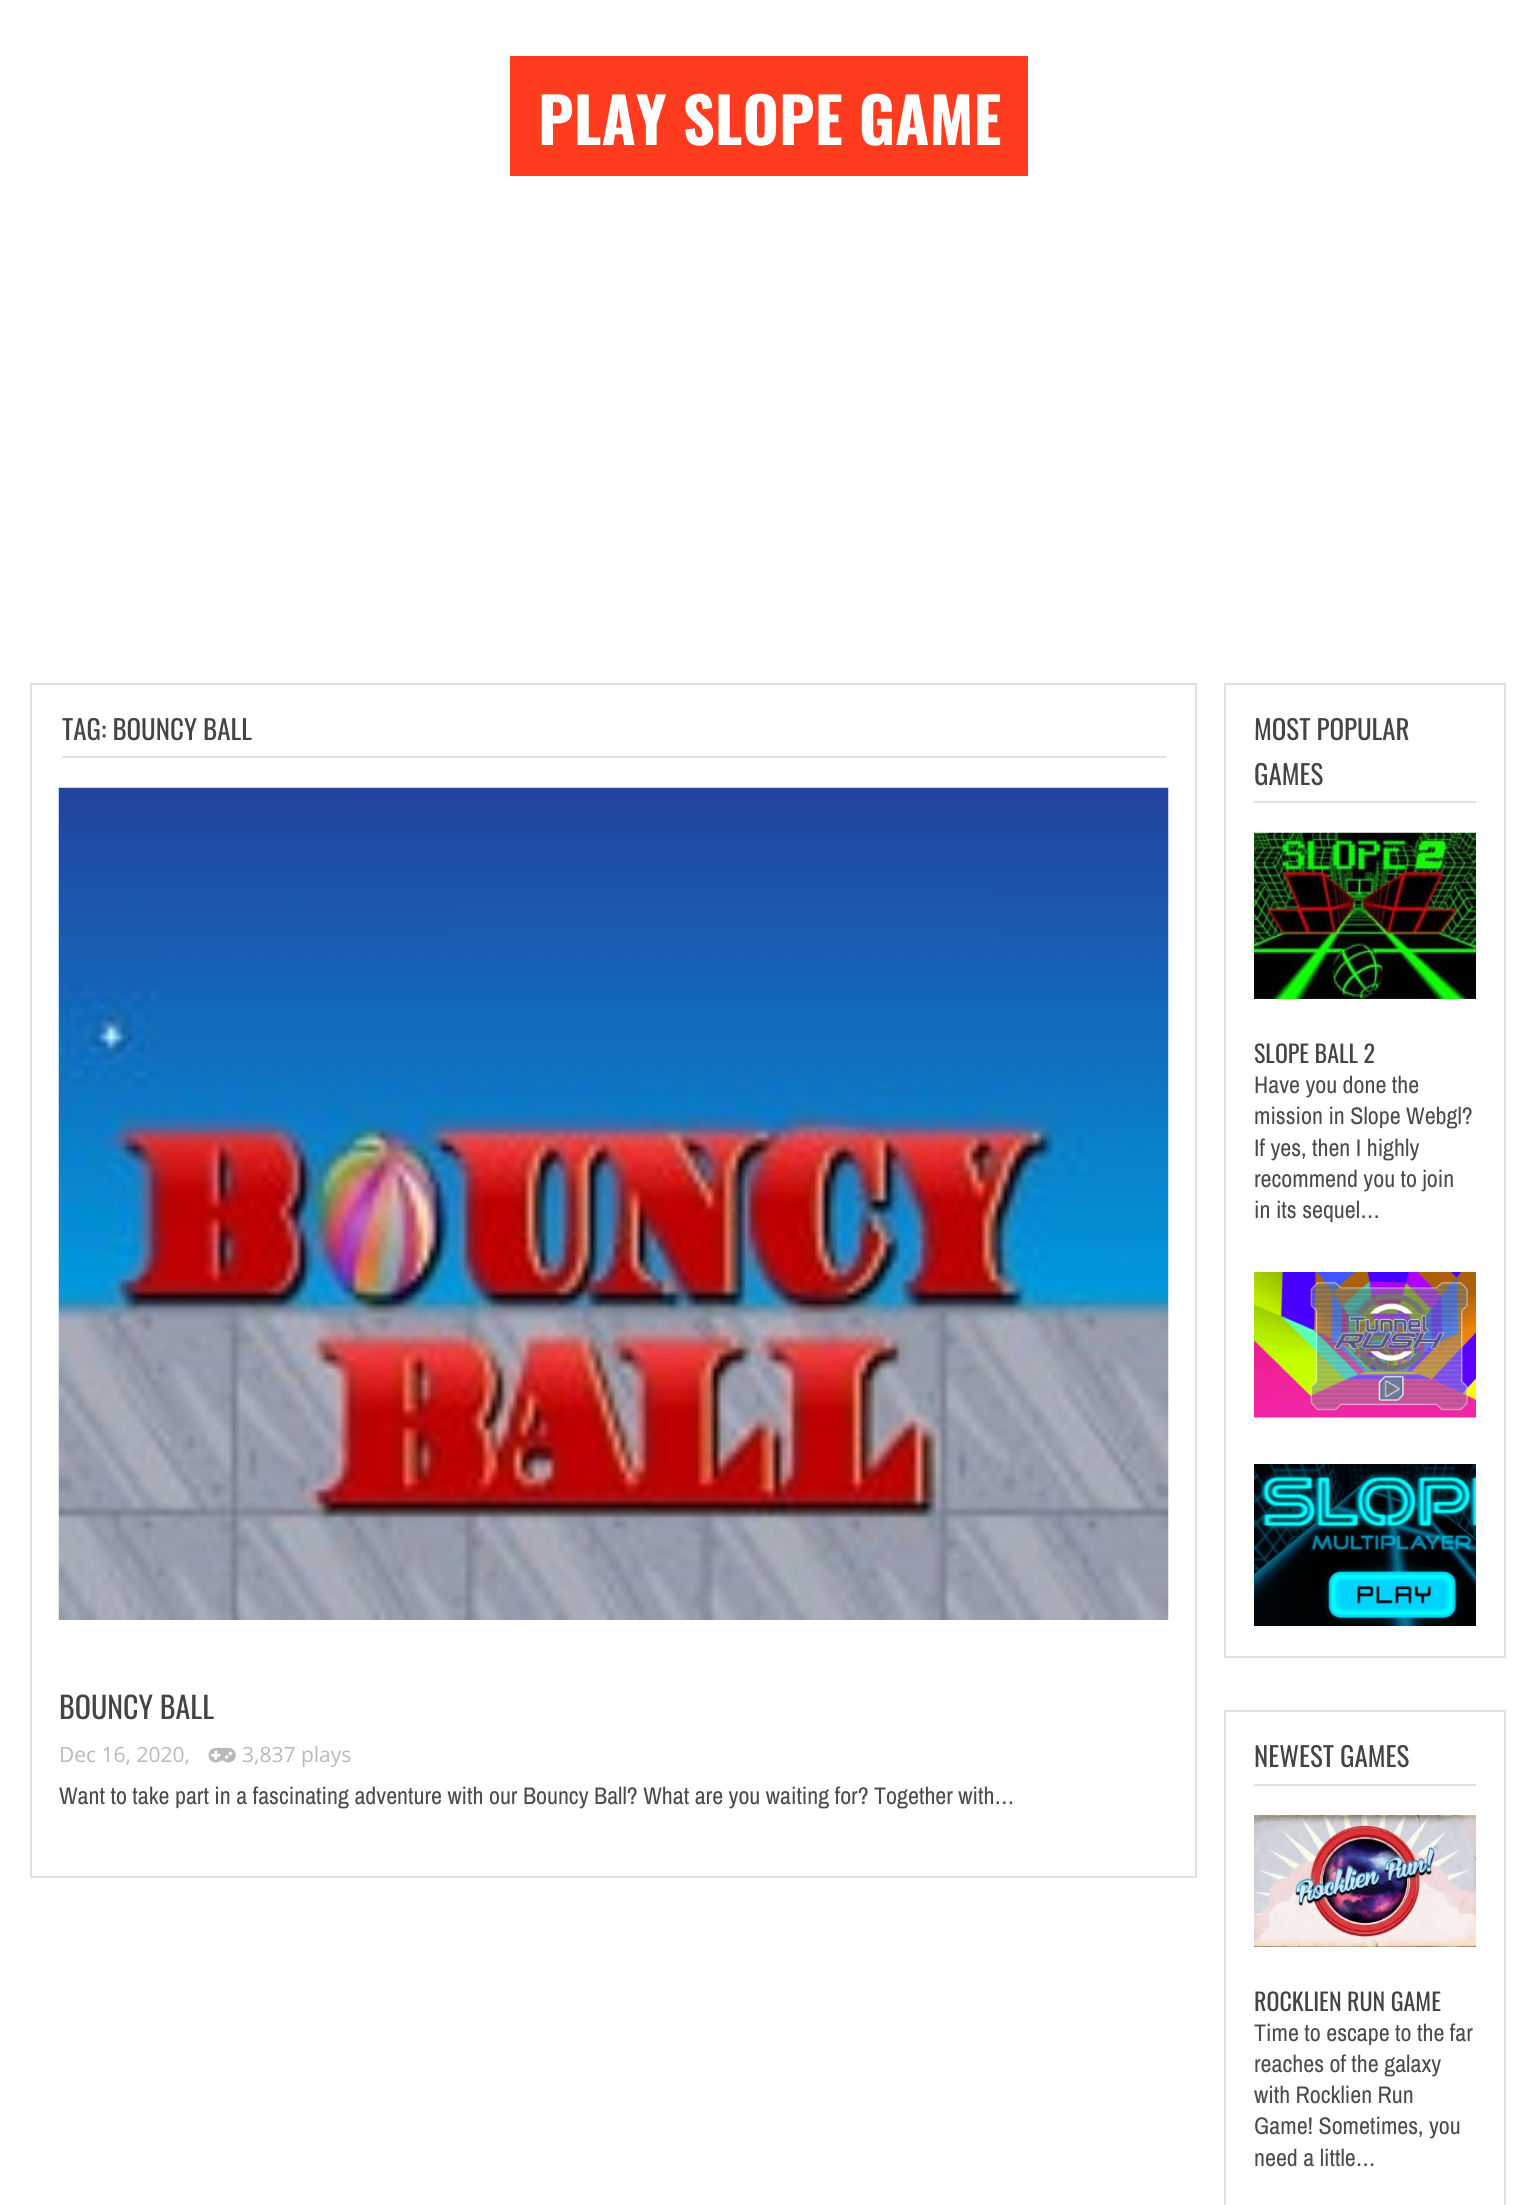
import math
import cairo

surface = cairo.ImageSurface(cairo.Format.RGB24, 1536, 2205)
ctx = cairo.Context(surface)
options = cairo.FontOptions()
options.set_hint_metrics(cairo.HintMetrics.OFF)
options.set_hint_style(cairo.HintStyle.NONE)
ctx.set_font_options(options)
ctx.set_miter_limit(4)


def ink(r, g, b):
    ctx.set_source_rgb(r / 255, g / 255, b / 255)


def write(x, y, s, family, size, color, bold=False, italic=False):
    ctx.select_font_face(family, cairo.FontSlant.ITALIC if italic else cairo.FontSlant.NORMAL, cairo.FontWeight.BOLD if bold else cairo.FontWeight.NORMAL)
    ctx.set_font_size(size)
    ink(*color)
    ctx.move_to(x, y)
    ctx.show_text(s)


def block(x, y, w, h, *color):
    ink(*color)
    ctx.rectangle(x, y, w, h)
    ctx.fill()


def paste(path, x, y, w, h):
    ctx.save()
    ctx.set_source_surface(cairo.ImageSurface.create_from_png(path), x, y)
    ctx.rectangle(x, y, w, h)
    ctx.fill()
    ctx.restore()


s1 = dict(family="Oswald", size=62.5, color=(255, 255, 255), bold=True)
s2 = dict(family="Oswald", size=27, color=(68, 68, 68))
s3 = dict(family="Oswald", size=30, color=(68, 68, 68))
s4 = dict(family="Open Sans", size=21, color=(185, 185, 185))
s5 = dict(family="Archivo Narrow", size=24, color=(75, 75, 75))
s6 = dict(family="Oswald", size=24, color=(68, 68, 68))

ink(255, 255, 255)
ctx.paint()
block(510, 56, 518, 120, 255, 60, 31)
write(538, 145, "PLAY SLOPE GAME", **s1)
ctx.rectangle(31, 684, 1165, 1193)
ink(221, 225, 239)
ctx.stroke()
block(62, 756, 1104, 2, 221, 225, 239)
write(62, 740, "TAG: BOUNCY BALL", **s2)
paste("pic1.png", 58, 787, 1111, 833)
write(59, 1719, "BOUNCY BALL", **s3)
write(59, 1762, "Dec 16, 2020,", **s4)
paste("pic2.png", 208, 1747, 28, 16)
write(242, 1762, "3,837 plays", **s4)
write(59, 1804, "Want to take part in a fascinating adventure with our Bouncy Ball? What are you waiting for? Together with…", **s5)
ctx.rectangle(1225, 684, 280, 973)
ink(221, 225, 239)
ctx.stroke()
block(1254, 801, 222, 2, 221, 225, 239)
write(1254, 740, "MOST POPULAR", **s2)
write(1254, 785, "GAMES", **s2)
paste("pic3.png", 1254, 832, 222, 167)
write(1254, 1063, "SLOPE BALL 2", **s6)
write(1254, 1093, "Have you done the", **s5)
write(1254, 1124, "mission in Slope Webgl?", **s5)
write(1254, 1156, "If yes, then I highly", **s5)
write(1254, 1187, "recommend you to join", **s5)
write(1254, 1218, "in its sequel…", **s5)
paste("pic4.png", 1254, 1272, 222, 146)
paste("pic5.png", 1254, 1464, 222, 162)
ctx.rectangle(1225, 1711, 280, 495)
ink(221, 225, 239)
ctx.stroke()
block(1254, 1784, 222, 2, 221, 225, 239)
write(1254, 1767, "NEWEST GAMES", **s2)
paste("pic6.png", 1254, 1815, 222, 132)
write(1254, 2011, "ROCKLIEN RUN GAME", **s6)
write(1254, 2041, "Time to escape to the far", **s5)
write(1254, 2072, "reaches of the galaxy", **s5)
write(1254, 2103, "with Rocklien Run", **s5)
write(1254, 2134, "Game! Sometimes, you", **s5)
write(1254, 2166, "need a little…", **s5)
surface.write_to_png("screenshot.png")
